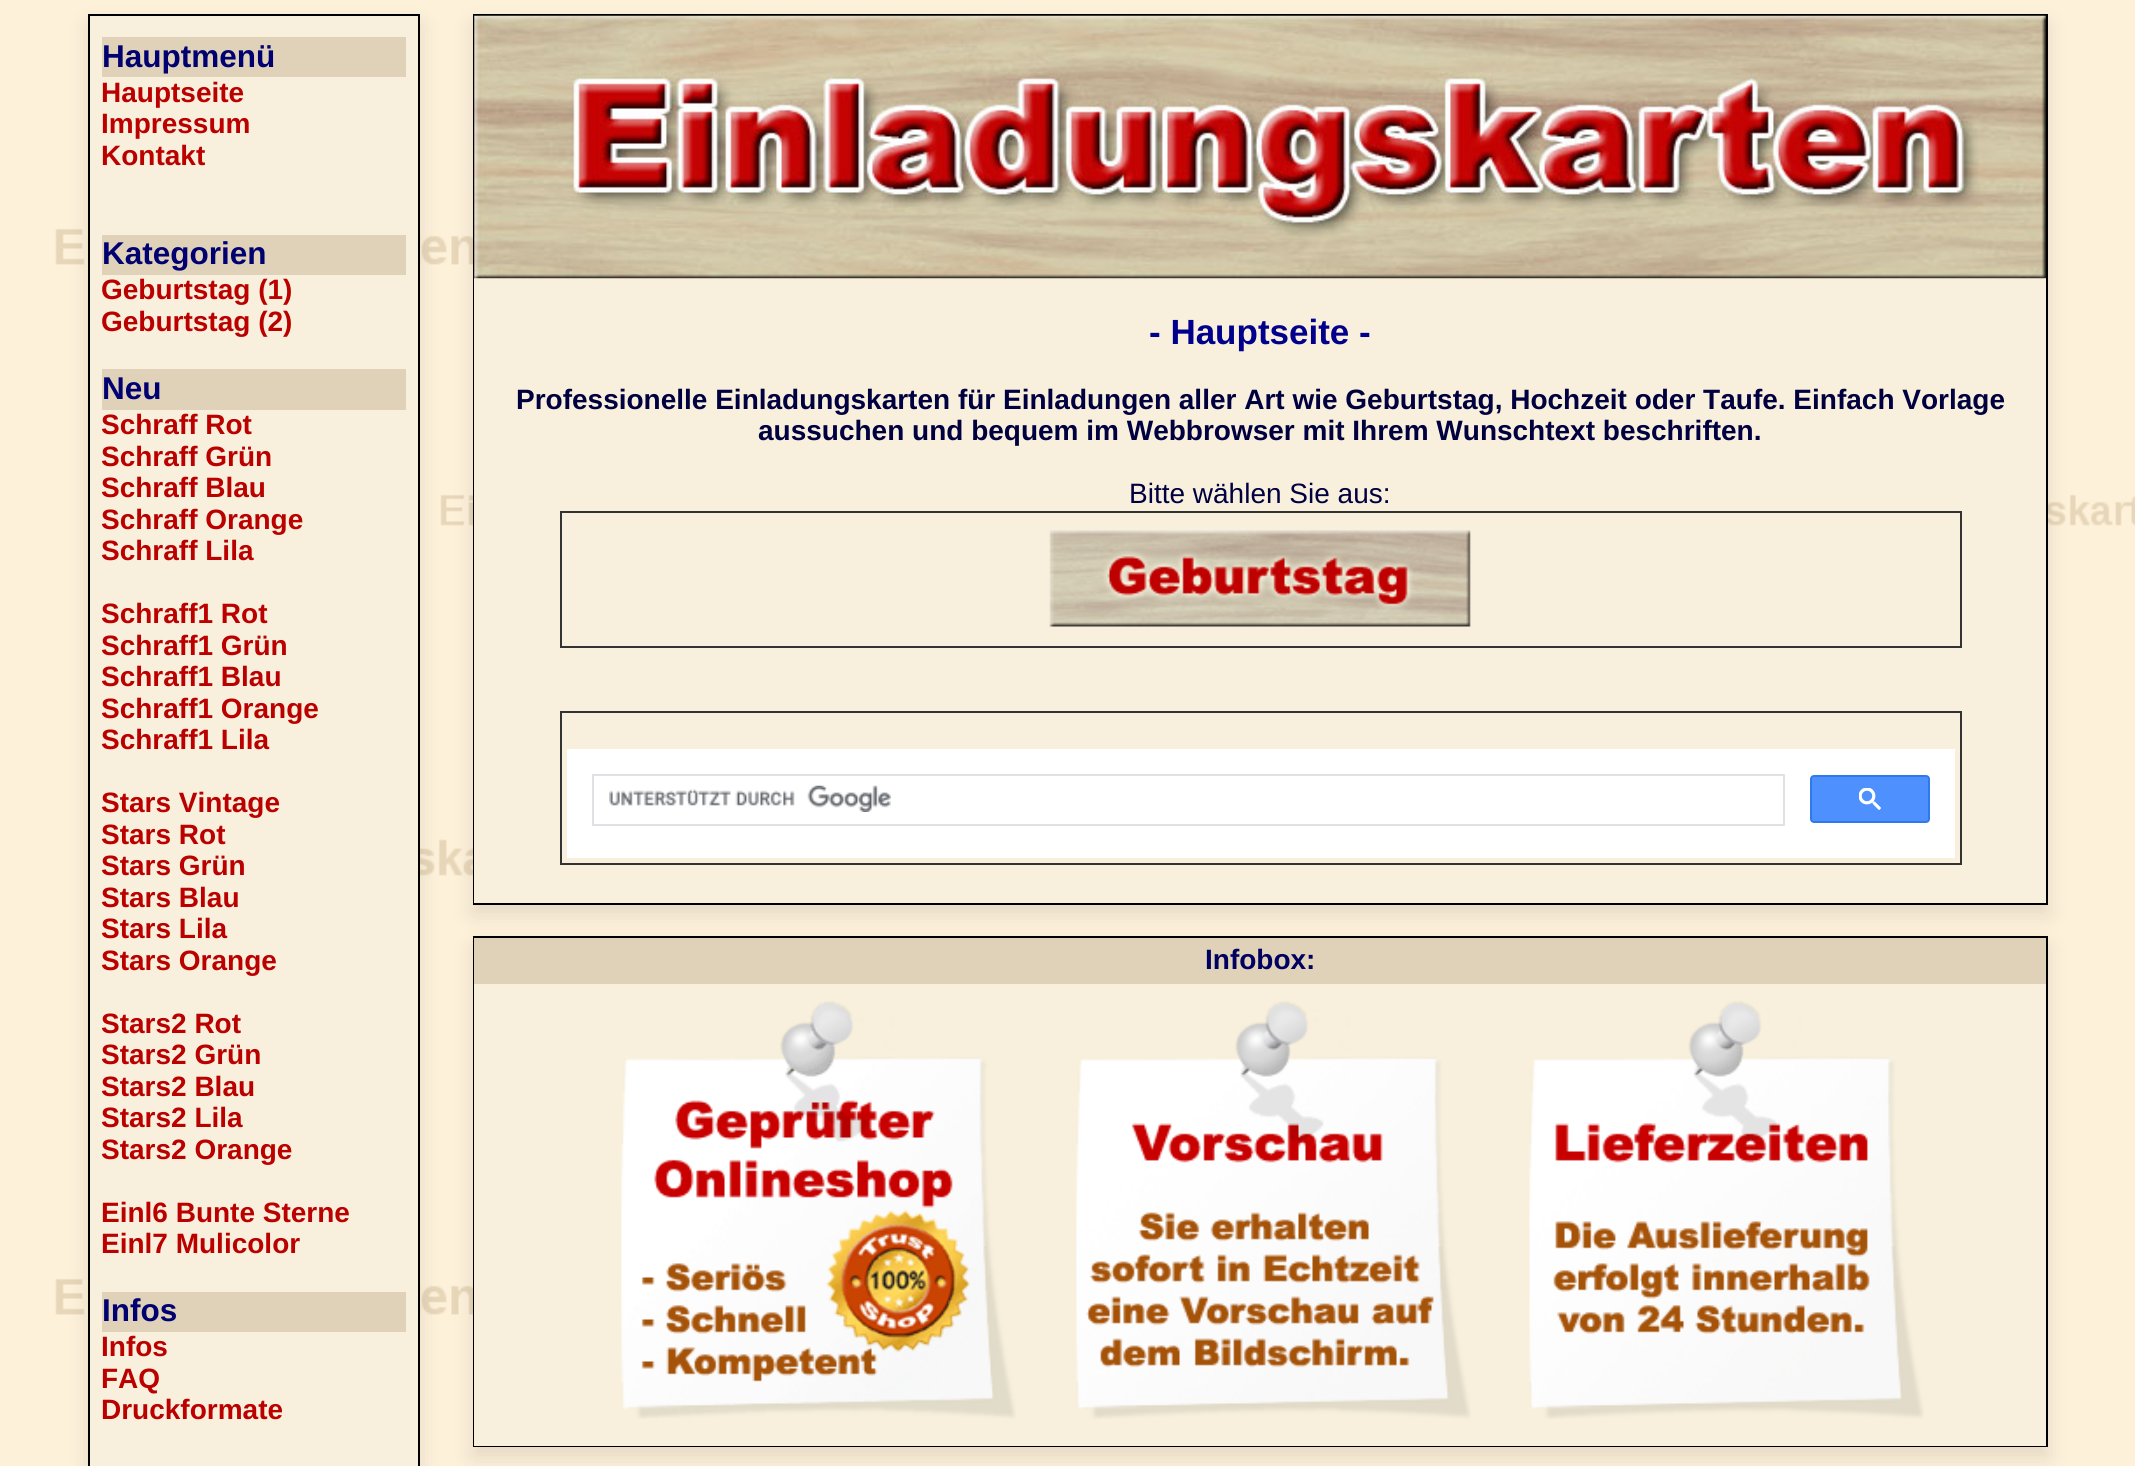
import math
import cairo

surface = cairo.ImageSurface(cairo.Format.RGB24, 2135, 1466)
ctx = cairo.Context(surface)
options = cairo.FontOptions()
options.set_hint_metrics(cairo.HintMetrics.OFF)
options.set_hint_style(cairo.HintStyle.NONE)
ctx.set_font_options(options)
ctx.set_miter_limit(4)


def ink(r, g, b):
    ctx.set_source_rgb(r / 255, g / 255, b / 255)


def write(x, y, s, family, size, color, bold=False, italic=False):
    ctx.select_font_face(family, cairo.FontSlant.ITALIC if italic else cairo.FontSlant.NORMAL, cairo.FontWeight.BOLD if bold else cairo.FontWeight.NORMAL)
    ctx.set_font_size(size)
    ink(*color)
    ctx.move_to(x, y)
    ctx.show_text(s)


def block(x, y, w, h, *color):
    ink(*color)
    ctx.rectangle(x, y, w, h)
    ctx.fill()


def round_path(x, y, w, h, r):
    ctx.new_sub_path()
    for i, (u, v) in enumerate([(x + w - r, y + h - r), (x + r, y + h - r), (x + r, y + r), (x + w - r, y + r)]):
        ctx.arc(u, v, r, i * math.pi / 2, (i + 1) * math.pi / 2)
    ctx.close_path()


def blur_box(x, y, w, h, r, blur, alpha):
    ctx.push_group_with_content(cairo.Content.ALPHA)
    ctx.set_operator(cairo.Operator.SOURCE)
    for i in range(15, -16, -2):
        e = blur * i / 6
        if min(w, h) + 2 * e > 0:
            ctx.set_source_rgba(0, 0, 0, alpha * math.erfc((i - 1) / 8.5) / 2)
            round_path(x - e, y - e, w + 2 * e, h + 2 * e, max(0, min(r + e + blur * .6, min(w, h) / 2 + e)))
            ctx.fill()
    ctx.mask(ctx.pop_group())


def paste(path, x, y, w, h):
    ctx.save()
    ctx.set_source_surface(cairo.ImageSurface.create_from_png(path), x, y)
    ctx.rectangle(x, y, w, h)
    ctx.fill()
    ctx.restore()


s1 = dict(family="Liberation Sans", size=31.5, color=(0, 0, 112), bold=True)
s2 = dict(family="Liberation Sans", size=28, color=(187, 0, 0), bold=True)
s3 = dict(family="Liberation Sans", size=35, color=(0, 0, 140), bold=True)
s4 = dict(family="Liberation Sans", size=28, color=(0, 0, 64), bold=True)
s5 = dict(family="Liberation Sans", size=28, color=(0, 0, 64))
s6 = dict(family="Liberation Sans", size=28, color=(0, 0, 96), bold=True)

ink(255, 255, 255)
ctx.paint()
paste("pic1.png", 0, 0, 2135, 1466)
ink(0, 0, 0)
blur_box(88, 25, 332, 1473, 0, 10.5, 0.1)
ink(248, 240, 221)
ctx.rectangle(89, 15, 330, 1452)
ctx.fill_preserve()
ink(0, 0, 0)
ctx.stroke()
block(102, 37, 304, 40, 224, 210, 184)
write(102, 67, "Hauptmenü", **s1)
write(101, 102, "Hauptseite", **s2)
write(101, 133, "Impressum", **s2)
write(101, 165, "Kontakt", **s2)
block(102, 235, 304, 40, 224, 210, 184)
write(102, 264, "Kategorien", **s1)
write(101, 299, "Geburtstag (1)", **s2)
write(101, 331, "Geburtstag (2)", **s2)
block(102, 369, 304, 41, 224, 210, 184)
write(102, 399, "Neu", **s1)
write(101, 434, "Schraff Rot", **s2)
write(101, 466, "Schraff Grün", **s2)
write(101, 497, "Schraff Blau", **s2)
write(101, 529, "Schraff Orange", **s2)
write(101, 560, "Schraff Lila", **s2)
write(101, 623, "Schraff1 Rot", **s2)
write(101, 655, "Schraff1 Grün", **s2)
write(101, 686, "Schraff1 Blau", **s2)
write(101, 718, "Schraff1 Orange", **s2)
write(101, 749, "Schraff1 Lila", **s2)
write(101, 812, "Stars Vintage", **s2)
write(101, 844, "Stars Rot", **s2)
write(101, 875, "Stars Grün", **s2)
write(101, 907, "Stars Blau", **s2)
write(101, 938, "Stars Lila", **s2)
write(101, 970, "Stars Orange", **s2)
write(101, 1033, "Stars2 Rot", **s2)
write(101, 1064, "Stars2 Grün", **s2)
write(101, 1096, "Stars2 Blau", **s2)
write(101, 1127, "Stars2 Lila", **s2)
write(101, 1159, "Stars2 Orange", **s2)
write(101, 1222, "Einl6 Bunte Sterne", **s2)
write(101, 1253, "Einl7 Mulicolor", **s2)
block(102, 1292, 304, 40, 224, 210, 184)
write(102, 1321, "Infos", **s1)
write(101, 1356, "Infos", **s2)
write(101, 1388, "FAQ", **s2)
write(101, 1419, "Druckformate", **s2)
ink(0, 0, 0)
blur_box(473, 25, 1575, 890, 0, 10.5, 0.1)
block(473, 14, 1575, 891, 0, 0, 0)
block(474, 278, 1572, 625, 248, 240, 220)
paste("pic2.png", 474, 15, 1572, 264)
write(1149, 344, "- Hauptseite -", **s3)
write(516, 409, "Professionelle Einladungskarten für Einladungen aller Art wie Geburtstag, Hochzeit oder Taufe. Einfach Vorlage", **s4)
write(758, 440, "aussuchen und bequem im Webbrowser mit Ihrem Wunschtext beschriften.", **s4)
write(1129, 503, "Bitte wählen Sie aus:", **s5)
ctx.rectangle(561, 512, 1400, 135)
ink(51, 51, 51)
ctx.stroke()
paste("pic3.png", 1049, 530, 422, 97)
ctx.rectangle(561, 712, 1400, 152)
ctx.stroke()
block(567, 749, 1388, 109, 255, 255, 255)
ctx.rectangle(593, 775, 1191, 50)
ink(223, 225, 229)
ctx.stroke()
paste("pic4.png", 609, 785, 282, 27)
ink(77, 144, 254)
round_path(1811, 776, 118, 46, 3)
ctx.fill_preserve()
ink(48, 121, 237)
ctx.stroke()
paste("pic5.png", 1859, 788, 22, 22)
ink(0, 0, 0)
blur_box(473, 947, 1575, 511, 0, 10.5, 0.1)
ctx.rectangle(474, 937, 1573, 509)
ink(0, 0, 0)
ctx.stroke()
block(474, 938, 1572, 46, 224, 210, 184)
write(1205, 969, "Infobox:", **s6)
block(474, 984, 1572, 462, 248, 240, 220)
paste("pic6.png", 621, 1001, 395, 418)
paste("pic7.png", 1076, 1001, 395, 418)
paste("pic8.png", 1529, 1001, 395, 418)
surface.write_to_png("screenshot.png")
